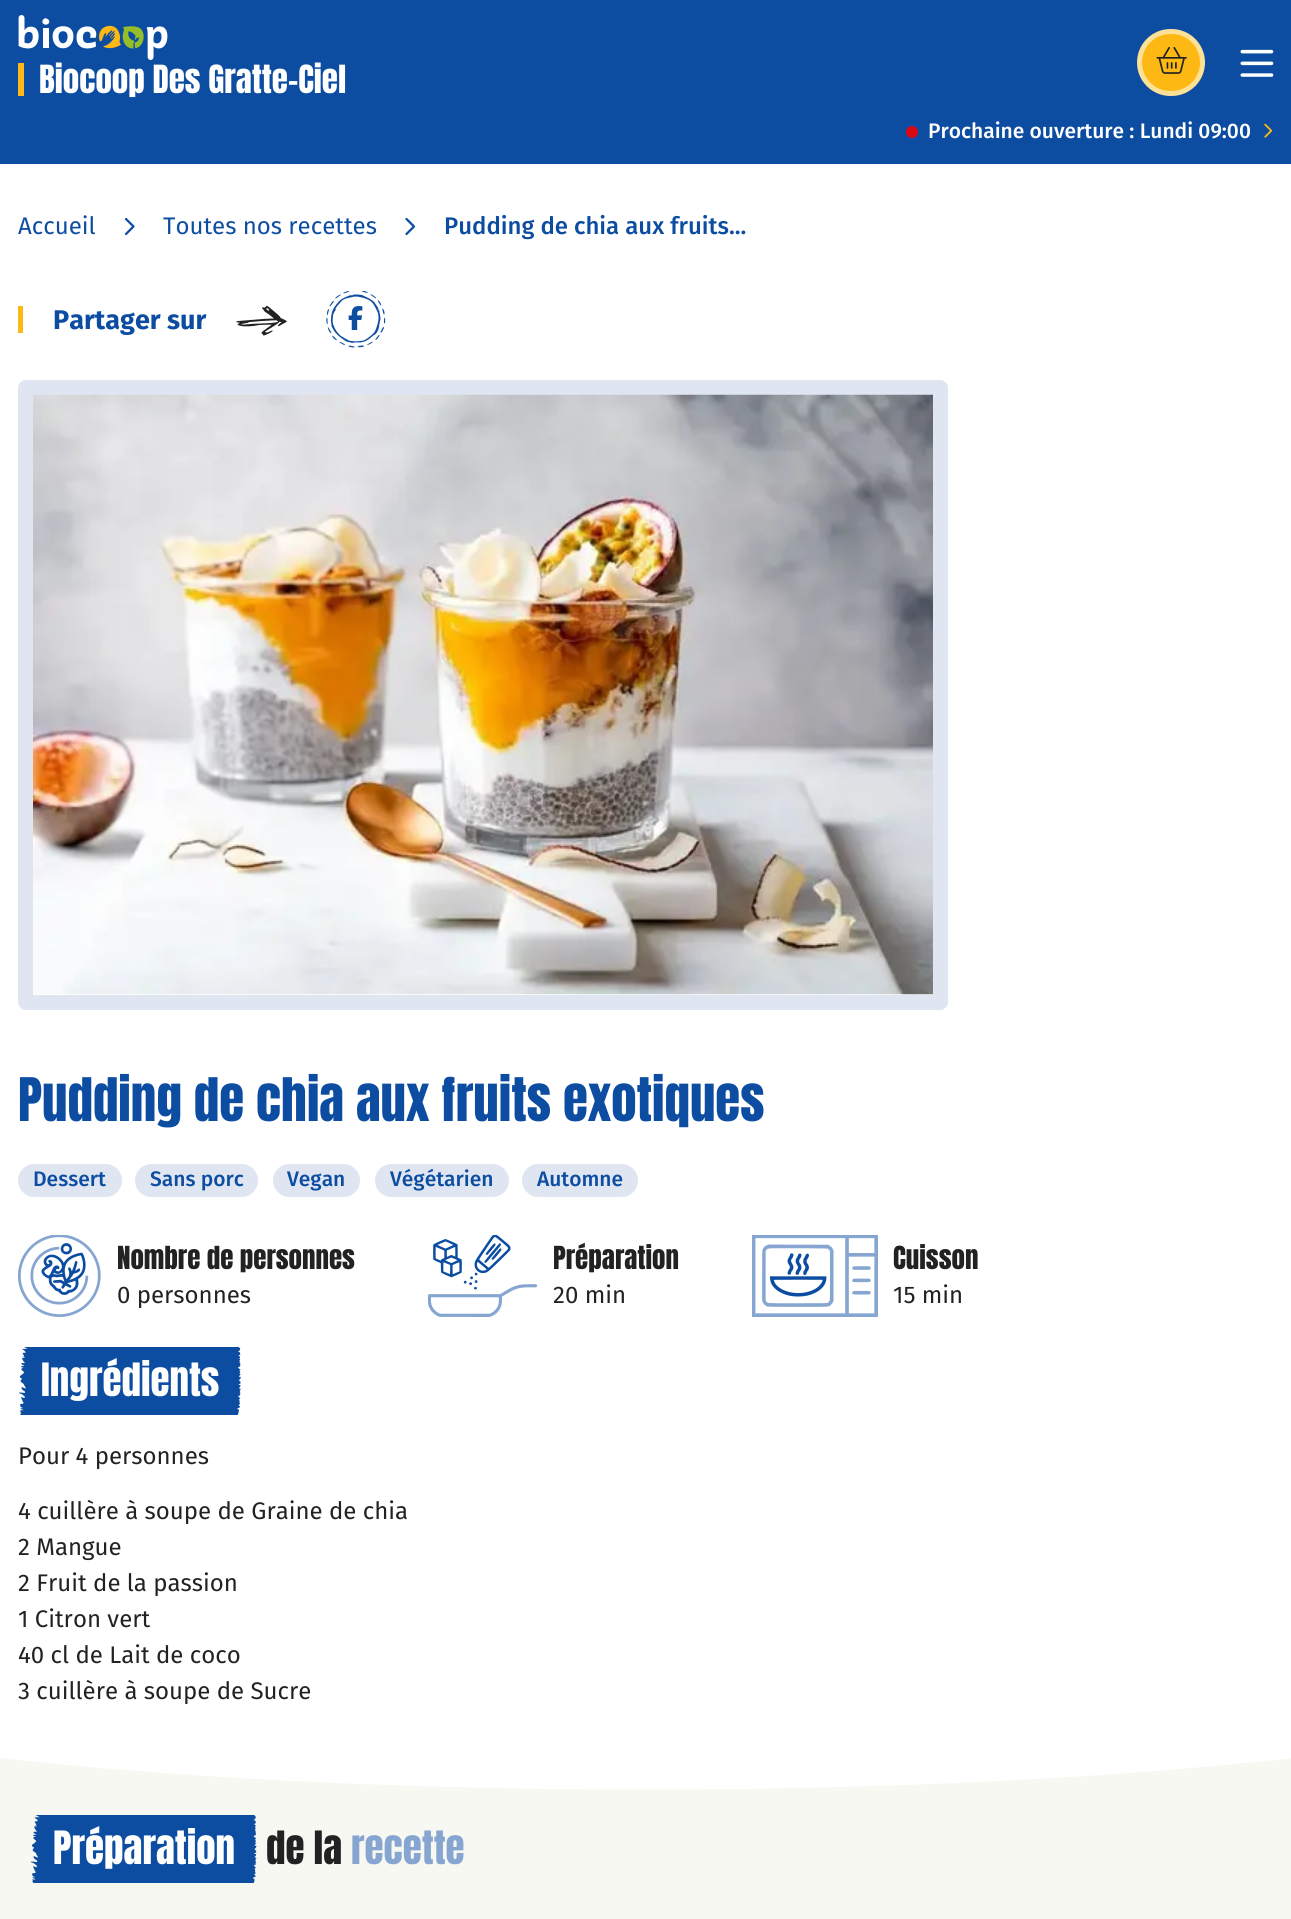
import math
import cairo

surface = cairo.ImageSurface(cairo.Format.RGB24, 1291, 1919)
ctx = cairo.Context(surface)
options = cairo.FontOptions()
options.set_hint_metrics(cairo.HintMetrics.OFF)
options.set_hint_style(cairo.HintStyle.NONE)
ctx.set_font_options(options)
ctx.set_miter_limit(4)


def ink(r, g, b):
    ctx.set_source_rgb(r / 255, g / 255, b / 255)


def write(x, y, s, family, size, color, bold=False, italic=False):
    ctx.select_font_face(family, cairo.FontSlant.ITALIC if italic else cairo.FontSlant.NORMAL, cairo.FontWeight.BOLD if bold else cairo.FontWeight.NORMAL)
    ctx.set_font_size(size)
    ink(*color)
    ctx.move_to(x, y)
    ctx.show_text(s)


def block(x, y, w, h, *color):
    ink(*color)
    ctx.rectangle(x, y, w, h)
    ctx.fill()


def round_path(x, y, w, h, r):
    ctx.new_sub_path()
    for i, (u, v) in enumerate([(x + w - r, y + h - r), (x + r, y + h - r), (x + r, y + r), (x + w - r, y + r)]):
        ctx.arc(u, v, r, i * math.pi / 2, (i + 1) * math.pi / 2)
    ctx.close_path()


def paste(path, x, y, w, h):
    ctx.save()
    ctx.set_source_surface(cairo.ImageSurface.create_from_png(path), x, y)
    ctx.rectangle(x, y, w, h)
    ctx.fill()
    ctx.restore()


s1 = dict(family="Anton", size=33, color=(255, 255, 255))
s2 = dict(family="Fira Sans Medium", size=21, color=(255, 255, 255))
s3 = dict(family="Fira Sans", size=24, color=(12, 77, 162))
s4 = dict(family="Fira Sans Medium", size=24, color=(12, 77, 162))
s5 = dict(family="Fira Sans", size=27, color=(12, 77, 162), bold=True)
s6 = dict(family="Anton", size=51, color=(12, 77, 162))
s7 = dict(family="Fira Sans Medium", size=21, color=(12, 77, 162))
s8 = dict(family="Anton", size=27, color=(34, 34, 34))
s9 = dict(family="Fira Sans", size=24, color=(34, 34, 34))
s10 = dict(family="Anton", size=39, color=(255, 255, 255))
s11 = dict(family="Anton", size=39, color=(34, 34, 34))
s12 = dict(family="Anton", size=39, color=(134, 166, 209))

ink(255, 255, 255)
ctx.paint()
block(0, 0, 1291, 164, 12, 77, 162)
paste("pic1.png", 18, 15, 150, 45)
block(18, 63, 6, 33, 253, 184, 19)
write(39, 93, "Biocoop Des Gratte-Ciel", **s1)
ink(253, 184, 19)
round_path(1139.5, 31.5, 63, 62, 31)
ctx.fill_preserve()
ink(252, 225, 151)
ctx.set_line_width(5)
ctx.stroke()
paste("pic2.png", 1156, 46, 31, 28)
paste("pic3.png", 1240, 49, 34, 28)
ink(218, 8, 18)
ctx.arc(912, 132, 6, 0, 2 * math.pi)
ctx.fill()
write(928, 138, "Prochaine ouverture : Lundi 09:00", **s2)
paste("pic4.png", 1264, 123, 9, 15)
write(18, 234, "Accueil", **s3)
paste("pic5.png", 124, 217, 11, 19)
write(163, 234, "Toutes nos recettes", **s3)
paste("pic6.png", 405, 217, 11, 19)
write(444, 234, "Pudding de chia aux fruits...", **s4)
block(18, 306, 5, 27, 253, 184, 19)
write(53, 329, "Partager sur", **s5)
paste("pic7.png", 236, 305, 51, 31)
paste("pic8.png", 326, 291, 60, 57)
paste("pic9.png", 348, 306, 15, 24)
round_path(25.5, 387.5, 915, 615, 0.5)
ink(223, 229, 241)
ctx.set_line_width(15)
ctx.stroke()
paste("pic10.png", 33, 394, 900, 601)
write(18, 1121, "Pudding de chia aux fruits exotiques", **s6)
ink(223, 229, 241)
round_path(18, 1164, 104, 33, 16.5)
ctx.fill()
write(33, 1186, "Dessert", **s7)
ink(223, 229, 241)
round_path(135, 1164, 123, 33, 16.5)
ctx.fill()
write(150, 1186, "Sans porc", **s7)
ink(223, 229, 241)
round_path(273, 1164, 87, 33, 16.5)
ctx.fill()
write(287, 1186, "Vegan", **s7)
ink(223, 229, 241)
round_path(375, 1164, 134, 33, 16.5)
ctx.fill()
write(390, 1186, "Végétarien", **s7)
ink(223, 229, 241)
round_path(522, 1164, 116, 33, 16.5)
ctx.fill()
write(537, 1186, "Automne", **s7)
paste("pic11.png", 18, 1235, 83, 82)
write(117, 1269, "Nombre de personnes", **s8)
write(117, 1303, "0 personnes", **s9)
paste("pic12.png", 428, 1235, 110, 82)
write(553, 1269, "Préparation", **s8)
write(553, 1303, "20 min", **s9)
paste("pic13.png", 752, 1235, 126, 82)
write(893, 1269, "Cuisson", **s8)
write(893, 1303, "15 min", **s9)
paste("pic14.png", 18, 1347, 223, 68)
write(41, 1396, "Ingrédients", **s10)
write(18, 1464, "Pour 4 personnes", **s9)
write(18, 1519, "4 cuillère à soupe de Graine de chia", **s9)
write(18, 1555, "2 Mangue", **s9)
write(18, 1591, "2 Fruit de la passion", **s9)
write(18, 1627, "1 Citron vert", **s9)
write(18, 1663, "40 cl de Lait de coco", **s9)
write(18, 1699, "3 cuillère à soupe de Sucre", **s9)
block(0, 1758, 1291, 161, 248, 248, 242)
ctx.save()
ctx.rectangle(0, 1710, 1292, 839)
ctx.clip()
ink(255, 255, 255)
ctx.new_path()
ctx.move_to(646, 1504.5)
ctx.curve_to(1216.5, 1504.5, 1679, 1568.5, 1679, 1647)
ctx.curve_to(1679, 1725.5, 1216.5, 1789.5, 646, 1789.5)
ctx.curve_to(75.5, 1789.5, -387, 1725.5, -387, 1647)
ctx.curve_to(-387, 1568.5, 75.5, 1504.5, 646, 1504.5)
ctx.close_path()
ctx.fill()
ctx.restore()
paste("pic15.png", 30, 1815, 227, 68)
write(53, 1864, "Préparation", **s10)
write(266, 1864, "de la", **s11)
write(351, 1864, "recette", **s12)
surface.write_to_png("screenshot.png")
